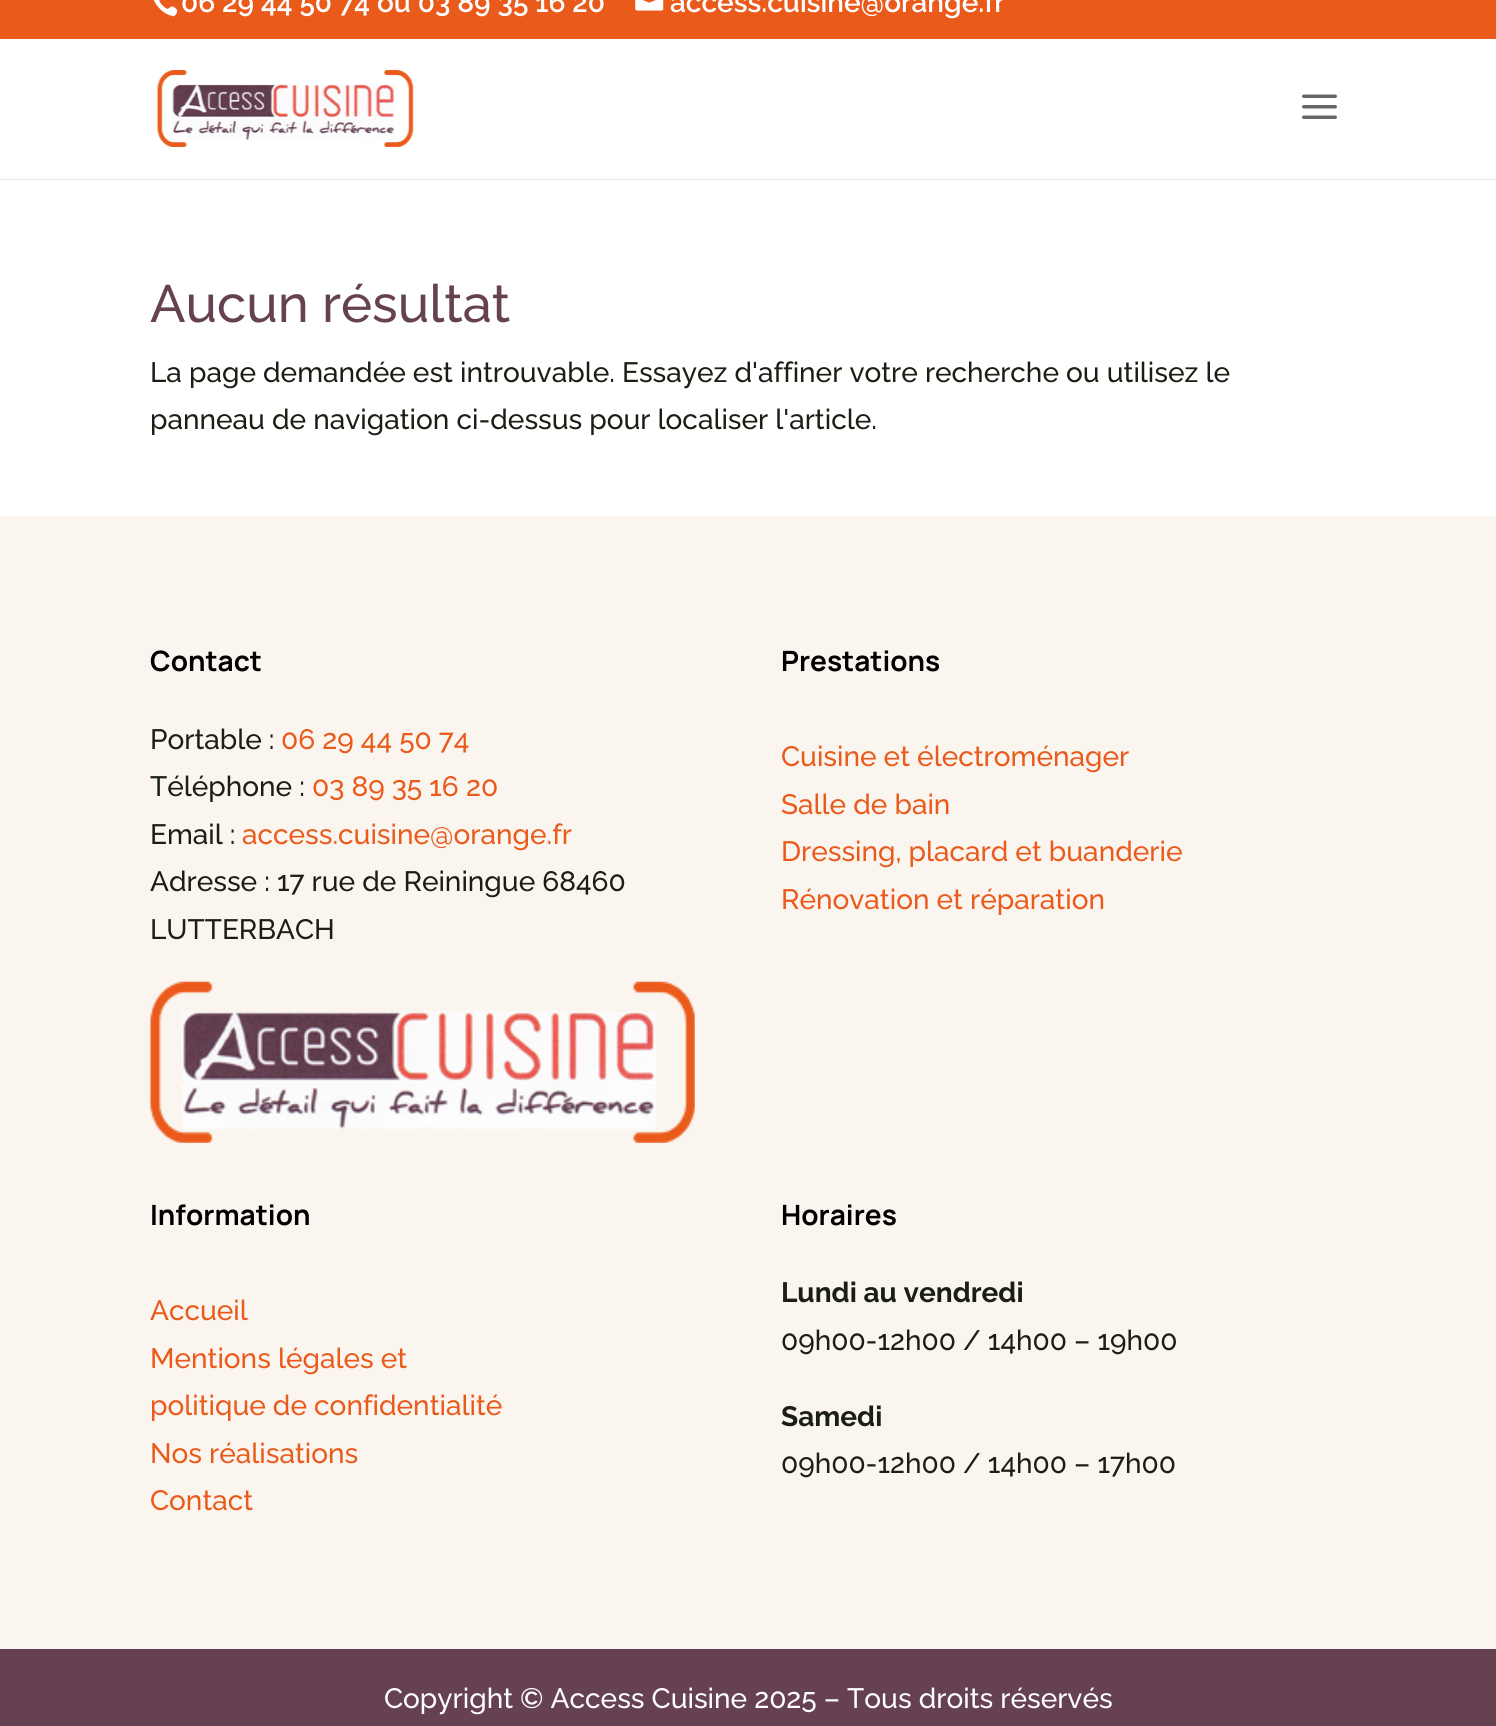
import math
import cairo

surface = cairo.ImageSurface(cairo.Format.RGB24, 1496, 1726)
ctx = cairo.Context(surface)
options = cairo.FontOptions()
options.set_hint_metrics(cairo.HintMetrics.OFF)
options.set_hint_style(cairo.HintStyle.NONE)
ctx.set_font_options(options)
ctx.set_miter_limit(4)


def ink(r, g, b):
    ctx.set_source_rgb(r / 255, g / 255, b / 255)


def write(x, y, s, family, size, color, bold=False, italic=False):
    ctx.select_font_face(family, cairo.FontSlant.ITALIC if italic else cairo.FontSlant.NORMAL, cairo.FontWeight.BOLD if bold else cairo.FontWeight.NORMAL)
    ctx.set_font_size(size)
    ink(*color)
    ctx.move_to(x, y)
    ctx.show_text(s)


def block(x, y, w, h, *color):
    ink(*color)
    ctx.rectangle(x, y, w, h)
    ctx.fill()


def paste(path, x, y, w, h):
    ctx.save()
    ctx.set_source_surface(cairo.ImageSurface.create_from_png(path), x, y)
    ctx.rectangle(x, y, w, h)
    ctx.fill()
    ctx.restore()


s1 = dict(family="Raleway SemiBold", size=28, color=(255, 255, 255))
s2 = dict(family="Raleway Medium", size=52.5, color=(102, 65, 82))
s3 = dict(family="Raleway Medium", size=28, color=(26, 30, 19))
s4 = dict(family="Manrope", size=28, color=(0, 0, 0), bold=True)
s5 = dict(family="Raleway Medium", size=28, color=(234, 90, 27))
s6 = dict(family="Raleway", size=28, color=(26, 30, 19), bold=True)
s7 = dict(family="Raleway Medium", size=28, color=(255, 255, 255))

ink(255, 255, 255)
ctx.paint()
block(0, 0, 1496, 39, 234, 90, 27)
paste("pic1.png", 153, 0, 25, 17)
write(181, 12, "06 29 44 50 74 ou 03 89 35 16 20", **s1)
paste("pic2.png", 635, 0, 29, 11)
write(670, 12, "access.cuisine@orange.fr", **s1)
block(0, 179, 1496, 1, 230, 230, 230)
paste("pic3.png", 156, 70, 258, 77)
paste("pic4.png", 1302, 94, 35, 25)
write(150, 322, "Aucun résultat", **s2)
write(150, 382, "La page demandée est introuvable. Essayez d'affiner votre recherche ou utilisez le", **s3)
write(150, 429, "panneau de navigation ci-dessus pour localiser l'article.", **s3)
block(0, 516, 1496, 1133, 250, 245, 239)
write(150, 671, "Contact", **s4)
write(150, 749, "Portable :", **s3)
write(281, 749, "06 29 44 50 74", **s5)
write(150, 796, "Téléphone :", **s3)
write(312, 796, "03 89 35 16 20", **s5)
write(150, 844, "Email :", **s3)
write(242, 844, "access.cuisine@orange.fr", **s5)
write(150, 891, "Adresse : 17 rue de Reiningue 68460", **s3)
write(150, 939, "LUTTERBACH", **s3)
paste("pic5.png", 150, 981, 545, 162)
write(781, 671, "Prestations", **s4)
write(781, 766, "Cuisine et électroménager", **s5)
write(781, 814, "Salle de bain", **s5)
write(781, 861, "Dressing, placard et buanderie", **s5)
write(781, 909, "Rénovation et réparation", **s5)
write(150, 1225, "Information", **s4)
write(150, 1320, "Accueil", **s5)
write(150, 1368, "Mentions légales et", **s5)
write(150, 1415, "politique de confidentialité", **s5)
write(150, 1463, "Nos réalisations", **s5)
write(150, 1510, "Contact", **s5)
write(781, 1225, "Horaires", **s4)
write(781, 1302, "Lundi au vendredi", **s6)
write(781, 1350, "09h00-12h00 / 14h00 – 19h00", **s3)
write(781, 1426, "Samedi", **s6)
write(781, 1473, "09h00-12h00 / 14h00 – 17h00", **s3)
block(0, 1649, 1496, 77, 102, 65, 82)
write(384, 1708, "Copyright © Access Cuisine 2025 – Tous droits réservés", **s7)
surface.write_to_png("screenshot.png")
